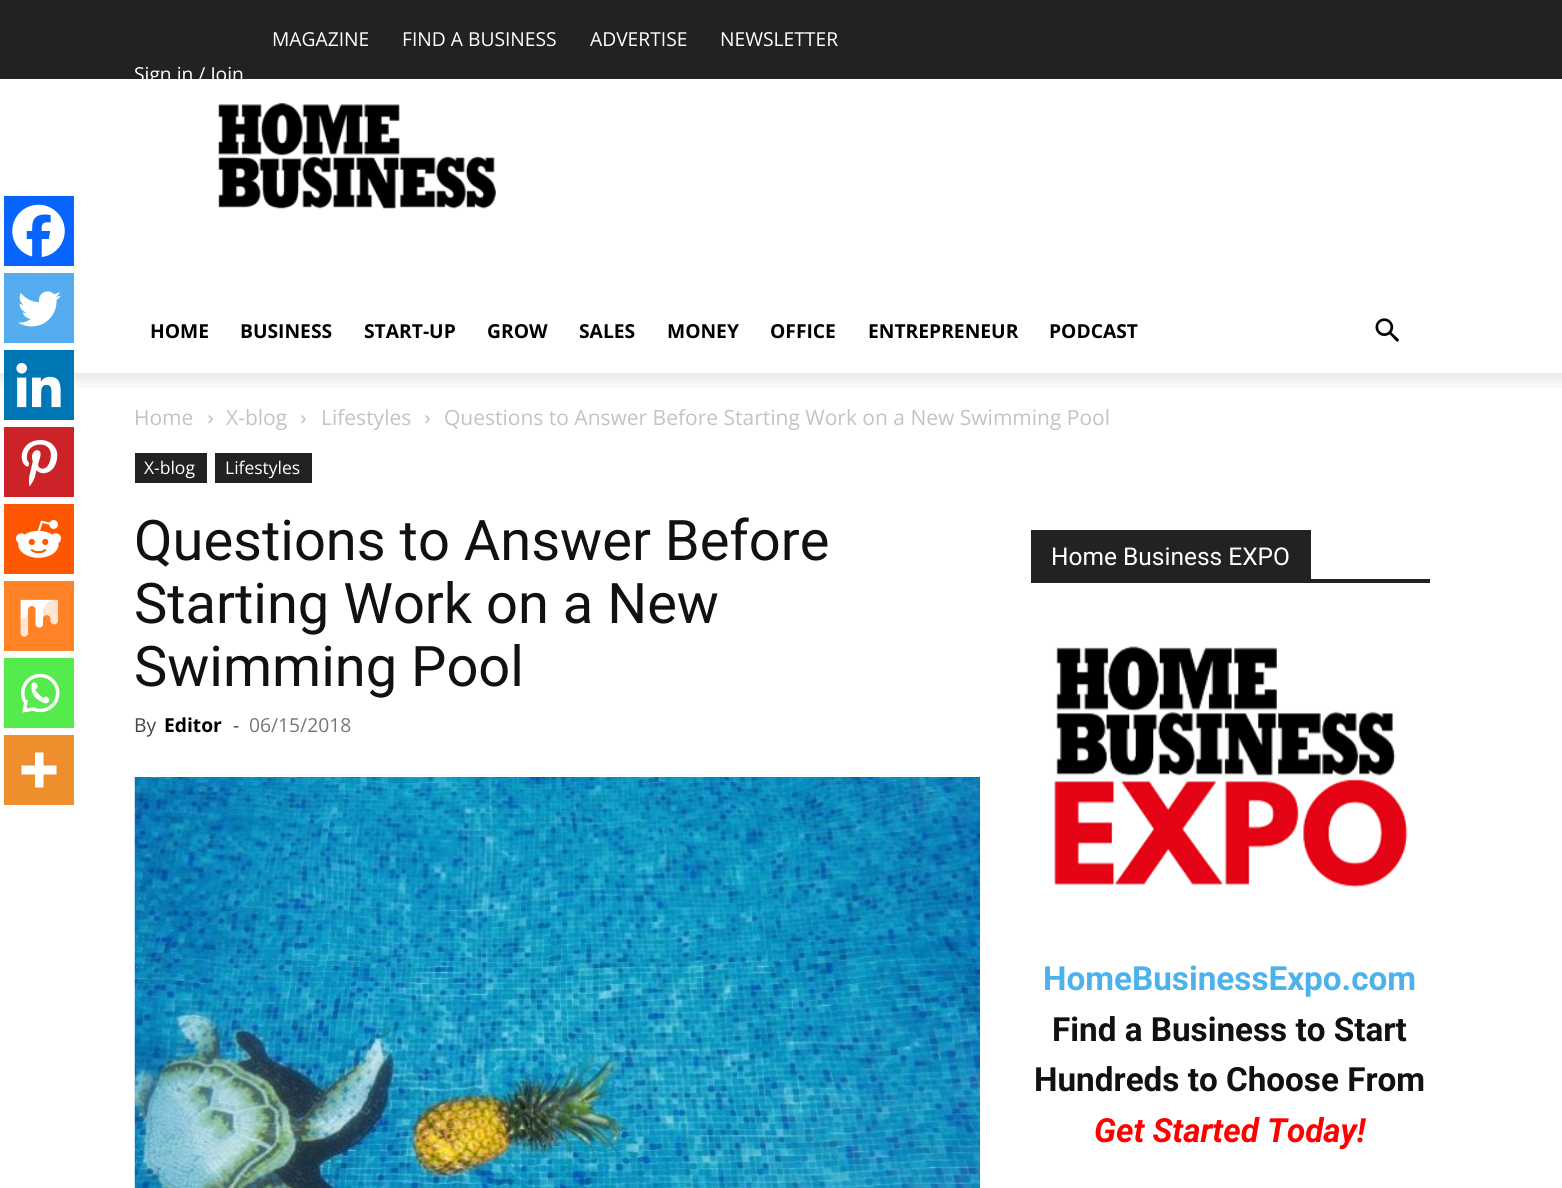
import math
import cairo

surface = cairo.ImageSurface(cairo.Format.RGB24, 1562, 1188)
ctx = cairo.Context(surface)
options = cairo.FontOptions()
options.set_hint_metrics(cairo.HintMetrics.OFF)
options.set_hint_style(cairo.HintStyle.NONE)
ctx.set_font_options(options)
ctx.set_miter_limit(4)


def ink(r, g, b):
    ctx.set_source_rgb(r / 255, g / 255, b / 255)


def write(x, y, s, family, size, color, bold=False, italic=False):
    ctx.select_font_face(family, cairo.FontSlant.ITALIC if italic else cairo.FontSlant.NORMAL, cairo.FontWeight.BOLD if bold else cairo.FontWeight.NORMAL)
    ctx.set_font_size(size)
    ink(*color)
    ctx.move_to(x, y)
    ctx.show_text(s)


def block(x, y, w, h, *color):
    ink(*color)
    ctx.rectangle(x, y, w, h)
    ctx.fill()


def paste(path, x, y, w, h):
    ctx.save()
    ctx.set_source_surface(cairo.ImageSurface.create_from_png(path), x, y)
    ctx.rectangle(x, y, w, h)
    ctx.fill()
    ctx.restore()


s1 = dict(family="Open Sans", size=19.25, color=(255, 255, 255))
s2 = dict(family="Open Sans", size=19.25, color=(0, 0, 0), bold=True)
s3 = dict(family="Open Sans", size=21, color=(195, 195, 195))
s4 = dict(family="Open Sans", size=17.5, color=(255, 255, 255))
s5 = dict(family="Roboto", size=56, color=(17, 17, 17))
s6 = dict(family="Open Sans", size=19.25, color=(68, 68, 68))
s7 = dict(family="Open Sans", size=19.25, color=(118, 118, 118))
s8 = dict(family="Roboto", size=24.5, color=(255, 255, 255))
s9 = dict(family="Roboto", size=33.25, color=(77, 178, 236), bold=True)
s10 = dict(family="Roboto", size=33.25, color=(17, 17, 17), bold=True)
s11 = dict(family="Roboto", size=33.25, color=(255, 0, 0), bold=True, italic=True)

ink(255, 255, 255)
ctx.paint()
block(0, 0, 1562, 79, 34, 34, 34)
write(272, 46, "MAGAZINE", **s1)
write(402, 46, "FIND A BUSINESS", **s1)
write(590, 46, "ADVERTISE", **s1)
write(720, 46, "NEWSLETTER", **s1)
write(134, 81, "Sign in / Join", **s1)
paste("pic1.png", 218, 103, 278, 106)
write(150, 338, "HOME", **s2)
write(240, 338, "BUSINESS", **s2)
write(364, 338, "START-UP", **s2)
write(487, 338, "GROW", **s2)
write(579, 338, "SALES", **s2)
write(667, 338, "MONEY", **s2)
write(770, 338, "OFFICE", **s2)
write(868, 338, "ENTREPRENEUR", **s2)
write(1049, 338, "PODCAST", **s2)
paste("pic2.png", 1375, 318, 24, 24)
paste("pic3.png", 0, 373, 1562, 15)
write(134, 425, "Home", **s3)
paste("pic4.png", 208, 415, 5, 9)
write(226, 425, "X-blog", **s3)
paste("pic5.png", 301, 415, 5, 9)
write(321, 425, "Lifestyles", **s3)
paste("pic4.png", 425, 415, 5, 9)
write(444, 425, "Questions to Answer Before Starting Work on a New Swimming Pool", **s3)
block(4, 196, 70, 70, 7, 101, 254)
paste("pic6.png", 12, 204, 53, 53)
block(4, 273, 70, 70, 85, 172, 238)
paste("pic7.png", 18, 291, 43, 36)
block(4, 350, 70, 70, 0, 119, 181)
paste("pic8.png", 16, 362, 45, 46)
block(4, 427, 70, 70, 204, 35, 41)
paste("pic9.png", 21, 440, 37, 46)
block(4, 504, 70, 70, 255, 87, 0)
paste("pic10.png", 16, 520, 45, 38)
block(4, 581, 70, 70, 255, 130, 38)
paste("pic11.png", 20, 599, 38, 38)
block(4, 658, 70, 70, 85, 235, 76)
paste("pic12.png", 21, 673, 39, 40)
block(4, 735, 70, 70, 238, 142, 45)
ink(255, 255, 255)
ctx.set_fill_rule(cairo.FillRule.EVEN_ODD)
ctx.new_path()
ctx.move_to(43.5, 765.5)
ctx.line_to(43.5, 752.5)
ctx.line_to(35, 752.5)
ctx.line_to(35, 765.5)
ctx.line_to(21.5, 765.5)
ctx.line_to(21.5, 774.5)
ctx.line_to(35, 774.5)
ctx.line_to(35, 787.5)
ctx.line_to(43.5, 787.5)
ctx.line_to(43.5, 774.5)
ctx.line_to(56.5, 774.5)
ctx.line_to(56.5, 765.5)
ctx.close_path()
ctx.fill()
paste("pic13.png", 134, 777, 846, 411)
block(135, 453, 72, 30, 34, 34, 34)
write(144, 474, "X-blog", **s4)
block(215, 453, 97, 30, 34, 34, 34)
write(225, 474, "Lifestyles", **s4)
write(134, 560, "Questions to Answer Before", **s5)
write(134, 623, "Starting Work on a New", **s5)
write(134, 686, "Swimming Pool", **s5)
write(134, 732, "By", **s6)
write(164, 732, "Editor", **s2)
write(233, 732, "-", **s6)
write(249, 732, "06/15/2018", **s7)
block(1031, 579, 399, 4, 34, 34, 34)
block(1031, 530, 280, 49, 34, 34, 34)
write(1051, 565, "Home Business EXPO", **s8)
paste("pic14.png", 1054, 646, 354, 242)
write(1043, 990, "HomeBusinessExpo.com", **s9)
write(1052, 1041, "Find a Business to Start", **s10)
write(1034, 1091, "Hundreds to Choose From", **s10)
write(1094, 1142, "Get Started Today!", **s11)
surface.write_to_png("screenshot.png")
